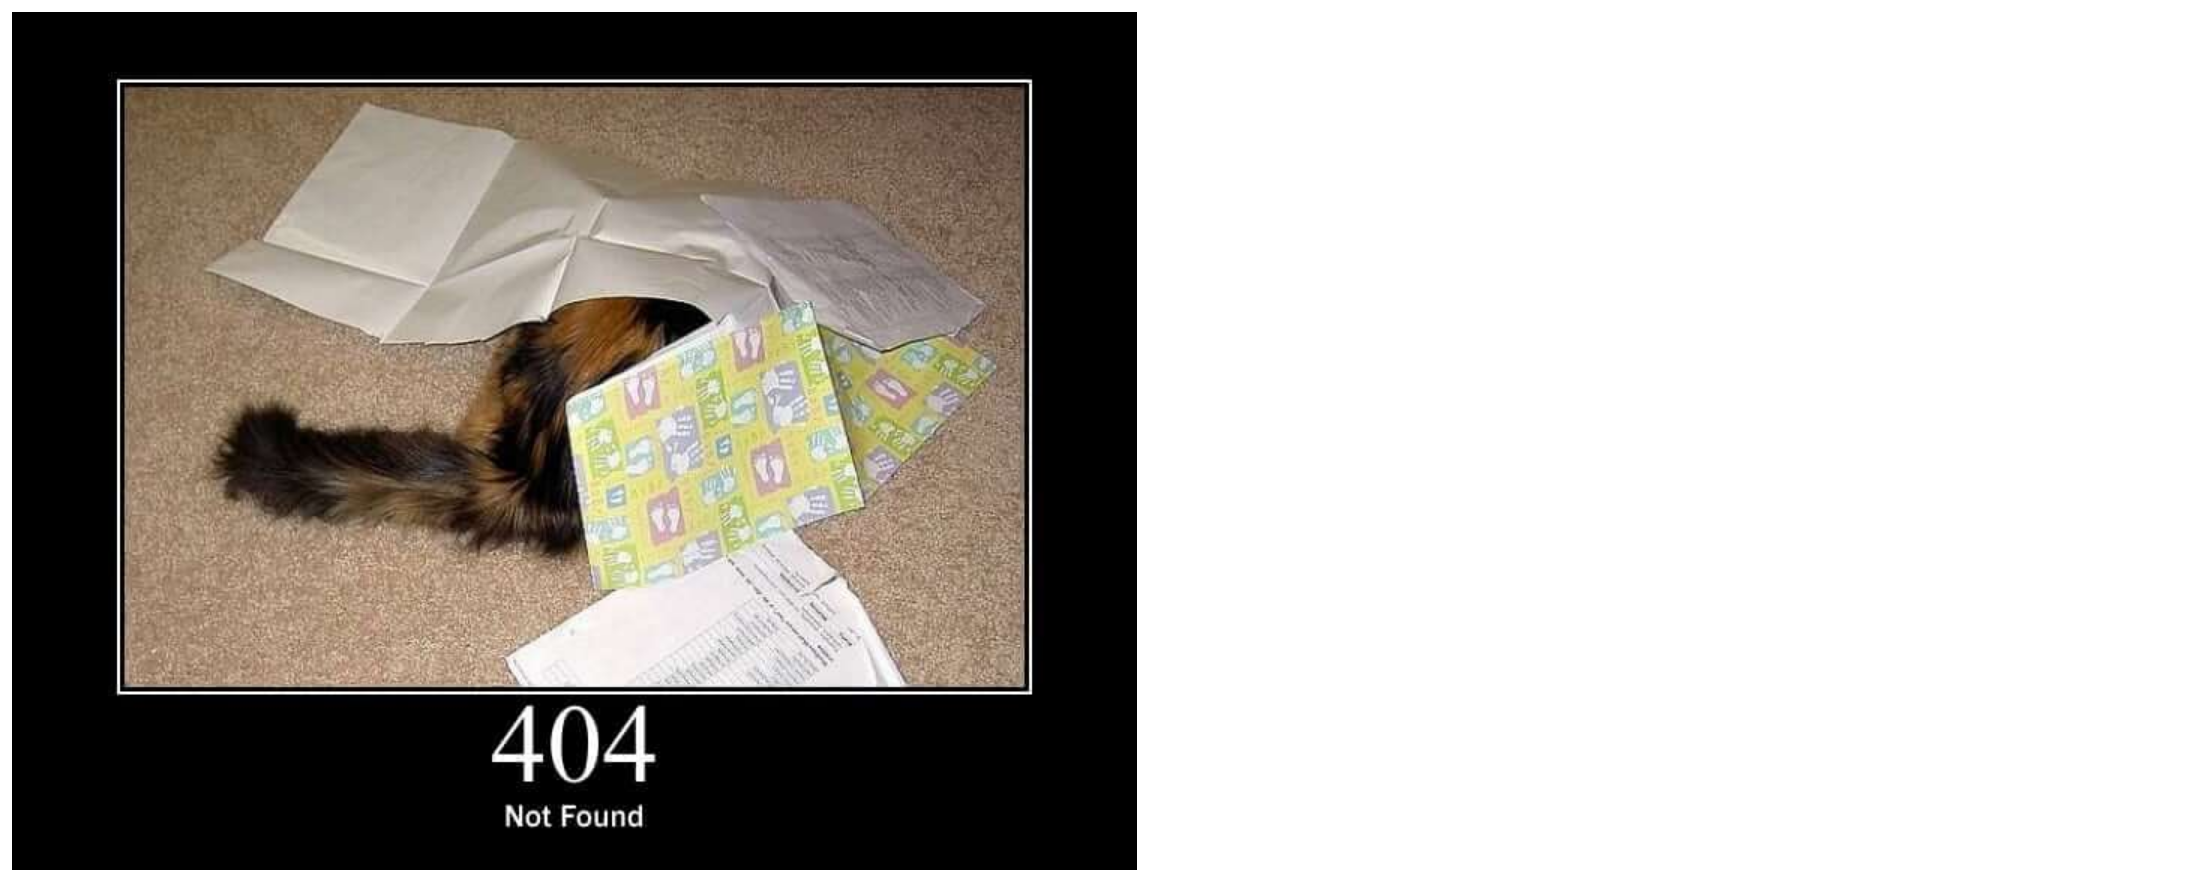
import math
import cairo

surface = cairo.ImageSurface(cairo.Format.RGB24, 2205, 870)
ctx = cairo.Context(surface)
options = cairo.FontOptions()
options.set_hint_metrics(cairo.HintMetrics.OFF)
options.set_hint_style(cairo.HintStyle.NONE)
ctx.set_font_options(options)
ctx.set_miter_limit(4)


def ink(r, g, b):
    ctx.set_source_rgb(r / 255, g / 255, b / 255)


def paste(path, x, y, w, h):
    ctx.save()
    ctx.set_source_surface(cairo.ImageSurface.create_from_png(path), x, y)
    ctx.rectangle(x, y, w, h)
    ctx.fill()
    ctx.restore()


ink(255, 255, 255)
ctx.paint()
paste("pic1.png", 12, 12, 1125, 858)
surface.write_to_png("screenshot.png")
